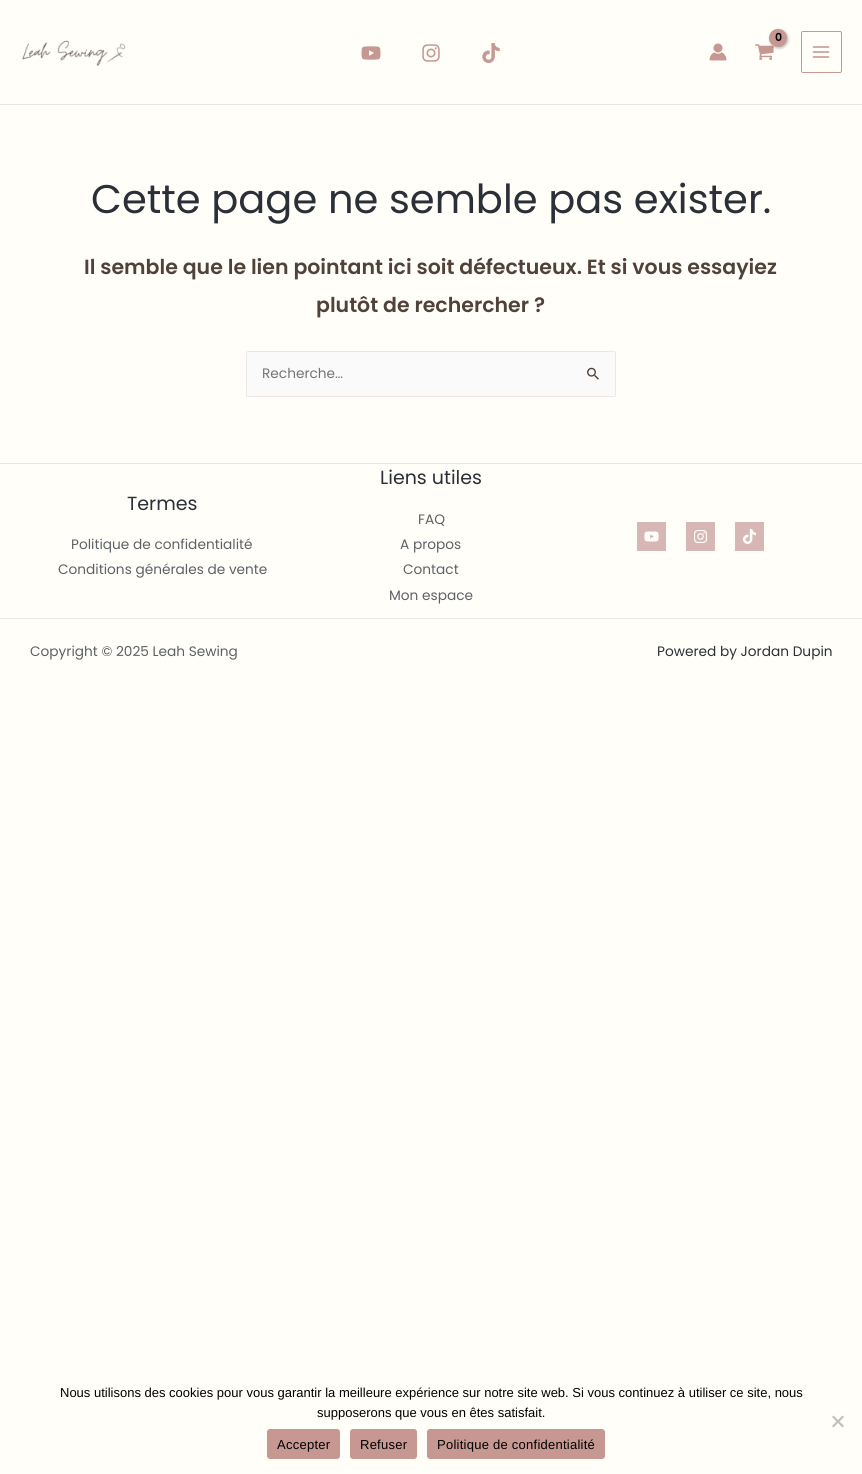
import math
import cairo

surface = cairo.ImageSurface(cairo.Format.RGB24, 862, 1474)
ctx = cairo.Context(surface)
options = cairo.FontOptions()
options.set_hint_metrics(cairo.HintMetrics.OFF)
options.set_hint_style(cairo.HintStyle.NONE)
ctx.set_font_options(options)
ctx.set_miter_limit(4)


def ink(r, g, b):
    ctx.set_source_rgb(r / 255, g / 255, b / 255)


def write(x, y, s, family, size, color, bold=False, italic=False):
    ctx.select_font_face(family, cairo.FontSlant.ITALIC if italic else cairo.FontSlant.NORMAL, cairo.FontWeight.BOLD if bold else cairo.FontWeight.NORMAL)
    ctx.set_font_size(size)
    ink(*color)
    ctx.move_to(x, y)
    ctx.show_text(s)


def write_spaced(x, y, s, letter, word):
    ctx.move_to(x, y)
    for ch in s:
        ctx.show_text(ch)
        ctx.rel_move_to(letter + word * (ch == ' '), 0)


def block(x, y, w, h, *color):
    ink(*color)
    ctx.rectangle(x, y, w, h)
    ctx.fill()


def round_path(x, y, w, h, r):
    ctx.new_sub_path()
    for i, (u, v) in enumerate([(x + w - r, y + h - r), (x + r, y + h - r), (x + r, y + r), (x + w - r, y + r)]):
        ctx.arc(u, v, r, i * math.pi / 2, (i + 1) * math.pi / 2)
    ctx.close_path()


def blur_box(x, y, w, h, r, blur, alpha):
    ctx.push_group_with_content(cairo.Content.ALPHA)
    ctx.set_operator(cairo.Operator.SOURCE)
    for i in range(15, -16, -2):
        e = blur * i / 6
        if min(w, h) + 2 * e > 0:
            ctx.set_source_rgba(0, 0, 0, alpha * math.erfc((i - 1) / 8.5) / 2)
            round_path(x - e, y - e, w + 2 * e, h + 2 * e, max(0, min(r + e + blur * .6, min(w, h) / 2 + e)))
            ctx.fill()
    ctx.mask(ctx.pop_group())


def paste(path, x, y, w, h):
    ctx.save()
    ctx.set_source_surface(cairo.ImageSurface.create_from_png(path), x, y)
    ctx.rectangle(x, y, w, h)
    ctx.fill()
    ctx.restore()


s1 = dict(family="Poppins SemiBold", size=11, color=(0, 0, 0))
s2 = dict(family="Poppins", size=40, color=(43, 47, 56))
s3 = dict(family="Poppins SemiBold", size=20.5, color=(80, 65, 57))
s4 = dict(family="Poppins", size=13.7, color=(117, 117, 117))
s5 = dict(family="Poppins", size=19, color=(43, 47, 56))
s6 = dict(family="Poppins", size=13.7, color=(93, 97, 103))
s7 = dict(family="Poppins", size=13.7, color=(43, 47, 56))
s8 = dict(family="Liberation Sans", size=13, color=(0, 0, 0))

ink(255, 254, 248)
ctx.paint()
block(0, 104, 862, 1, 237, 231, 231)
paste("pic1.png", 755, 44, 19, 16)
ink(0, 0, 0)
blur_box(770, 30, 18, 18, 9, 1.5, 0.3)
ink(199, 151, 145)
ctx.arc(778, 38, 9, 0, 2 * math.pi)
ctx.fill()
write(775, 41, "0", **s1)
round_path(801.5, 31.5, 40, 41, 1.5)
ink(199, 151, 145)
ctx.set_line_width(1)
ctx.stroke()
paste("pic2.png", 812, 46, 18, 12)
paste("pic3.png", 709, 43, 18, 18)
paste("pic4.png", 22, 40, 104, 26)
paste("pic5.png", 361, 46, 20, 14)
paste("pic6.png", 422, 44, 18, 18)
paste("pic7.png", 482, 43, 18, 20)
write(91, 213, "Cette page ne semble pas exister.", **s2)
write(84, 274, "Il semble que le lien pointant ici soit défectueux. Et si vous essayiez", **s3)
write(316, 312, "plutôt de rechercher ?", **s3)
ink(250, 250, 250)
round_path(246.5, 351.5, 369, 45, 1.5)
ctx.fill_preserve()
ink(237, 231, 231)
ctx.stroke()
write(262, 378, "Recherche…", **s4)
paste("pic8.png", 587, 367, 12, 13)
block(0, 463, 862, 1, 230, 230, 230)
write(127, 510, "Termes", **s5)
write(71, 549, "Politique de confidentialité", **s6)
write(58, 574, "Conditions générales de vente", **s6)
write(380, 484, "Liens utiles", **s5)
write(418, 524, "FAQ", **s6)
write(400, 549, "A propos", **s6)
write(403, 574, "Contact", **s6)
write(389, 600, "Mon espace", **s6)
block(637, 522, 29, 29, 214, 183, 181)
paste("pic9.png", 644, 531, 15, 11)
block(686, 522, 29, 29, 214, 183, 181)
paste("pic10.png", 694, 530, 13, 13)
block(735, 522, 29, 29, 214, 183, 181)
paste("pic11.png", 743, 529, 13, 15)
block(0, 618, 862, 1, 234, 234, 234)
write(30, 656, "Copyright © 2025 Leah Sewing", **s6)
write(657, 656, "Powered by Jordan Dupin", **s7)
write(60, 1397, "Nous utilisons des cookies pour vous garantir la meilleure expérience sur notre site web. Si vous continuez à utiliser ce site, nous", **s8)
write(317, 1417, "supposerons que vous en êtes satisfait.", **s8)
ink(192, 191, 188)
ctx.new_path()
ctx.move_to(842.5, 1415.5)
ctx.line_to(844, 1417)
ctx.line_to(833.5, 1427.5)
ctx.line_to(832, 1426)
ctx.close_path()
ctx.fill()
ctx.new_path()
ctx.move_to(832, 1417)
ctx.line_to(833.5, 1415.5)
ctx.line_to(844, 1426)
ctx.line_to(842.5, 1427.5)
ctx.close_path()
ctx.fill()
ink(199, 151, 145)
round_path(267, 1429, 73, 30, 3)
ctx.fill()
ink(0, 0, 0)
write_spaced(277, 1449, "Accepter", 0.25, 0)
ink(199, 151, 145)
round_path(350, 1429, 67, 30, 3)
ctx.fill()
ink(0, 0, 0)
write_spaced(360, 1449, "Refuser", 0.25, 0)
ink(199, 151, 145)
round_path(427, 1429, 178, 30, 3)
ctx.fill()
ink(0, 0, 0)
write_spaced(437, 1449, "Politique de confidentialité", 0.25, 0)
surface.write_to_png("screenshot.png")
